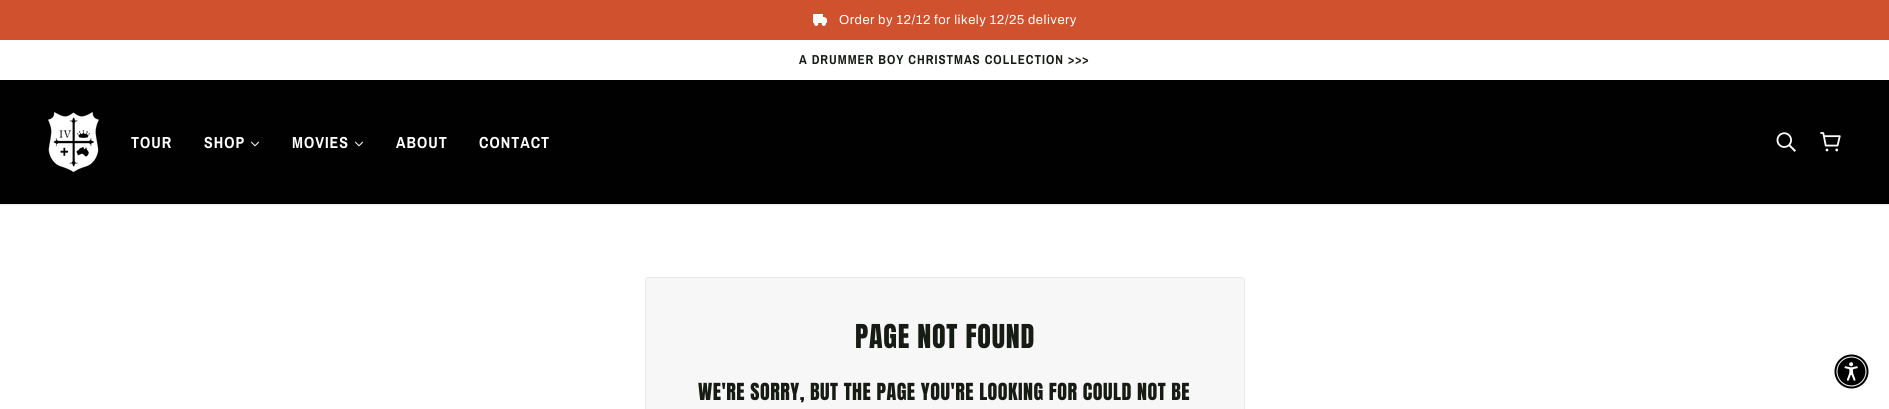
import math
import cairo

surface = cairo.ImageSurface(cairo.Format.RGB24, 1889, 409)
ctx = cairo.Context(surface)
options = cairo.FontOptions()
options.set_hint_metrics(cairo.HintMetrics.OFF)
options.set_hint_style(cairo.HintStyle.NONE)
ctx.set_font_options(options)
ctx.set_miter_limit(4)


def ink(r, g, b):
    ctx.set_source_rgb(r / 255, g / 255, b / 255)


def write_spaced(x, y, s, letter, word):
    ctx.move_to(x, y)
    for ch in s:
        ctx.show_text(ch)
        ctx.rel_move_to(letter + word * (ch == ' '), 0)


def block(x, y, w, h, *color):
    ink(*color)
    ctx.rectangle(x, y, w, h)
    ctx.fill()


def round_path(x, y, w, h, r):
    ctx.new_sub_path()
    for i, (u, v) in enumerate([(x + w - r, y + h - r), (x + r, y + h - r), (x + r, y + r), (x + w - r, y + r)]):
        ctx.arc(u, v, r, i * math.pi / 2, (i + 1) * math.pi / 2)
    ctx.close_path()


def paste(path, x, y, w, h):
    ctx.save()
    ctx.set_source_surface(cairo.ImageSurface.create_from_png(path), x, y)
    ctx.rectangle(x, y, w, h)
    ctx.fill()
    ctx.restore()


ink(255, 255, 255)
ctx.paint()
block(0, 0, 1889, 40, 208, 81, 46)
paste("pic1.png", 813, 14, 14, 12)
ctx.select_font_face("Archivo")
ctx.set_font_size(13)
ink(255, 255, 255)
write_spaced(839, 24, "Order by 12/12 for likely 12/25 delivery", 0.5, 0)
ctx.select_font_face("Archivo Narrow", cairo.FontSlant.NORMAL, cairo.FontWeight.BOLD)
ink(22, 27, 20)
write_spaced(799, 64, "A DRUMMER BOY CHRISTMAS COLLECTION >>>", 1, 0)
block(0, 80, 1889, 124, 2, 1, 2)
block(0, 204, 1889, 1, 234, 234, 234)
paste("pic2.png", 48, 112, 51, 60)
ctx.set_font_size(16)
ink(255, 255, 255)
write_spaced(131, 148, "TOUR", 1, 0)
write_spaced(204, 148, "SHOP", 1, 0)
paste("pic3.png", 250, 141, 10, 6)
write_spaced(292, 148, "MOVIES", 1, 0)
paste("pic3.png", 354, 141, 10, 6)
write_spaced(396, 148, "ABOUT", 1, 0)
write_spaced(479, 148, "CONTACT", 1, 0)
paste("pic4.png", 1776, 132, 20, 20)
paste("pic5.png", 1820, 132, 21, 20)
ink(247, 247, 247)
round_path(645.5, 277.5, 599, 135, 2.5)
ctx.fill_preserve()
ink(234, 234, 234)
ctx.set_line_width(1)
ctx.stroke()
ctx.select_font_face("Anton")
ctx.set_font_size(28)
ink(22, 27, 20)
write_spaced(855, 348, "PAGE NOT FOUND", 0.75, 0)
ctx.set_font_size(20)
write_spaced(698, 400, "WE'RE SORRY, BUT THE PAGE YOU'RE LOOKING FOR COULD NOT BE", 0.5, 0)
ink(0, 0, 0)
ctx.new_path()
ctx.arc(1851.5, 371.5, 17, 0, 2 * math.pi)
ctx.fill()
ink(255, 255, 255)
ctx.arc(1851.5, 371.5, 15, 0, 2 * math.pi)
ctx.fill()
ink(0, 0, 0)
ctx.arc(1851.5, 371.5, 14, 0, 2 * math.pi)
ctx.fill()
paste("pic6.png", 1844, 362, 14, 19)
surface.write_to_png("screenshot.png")
